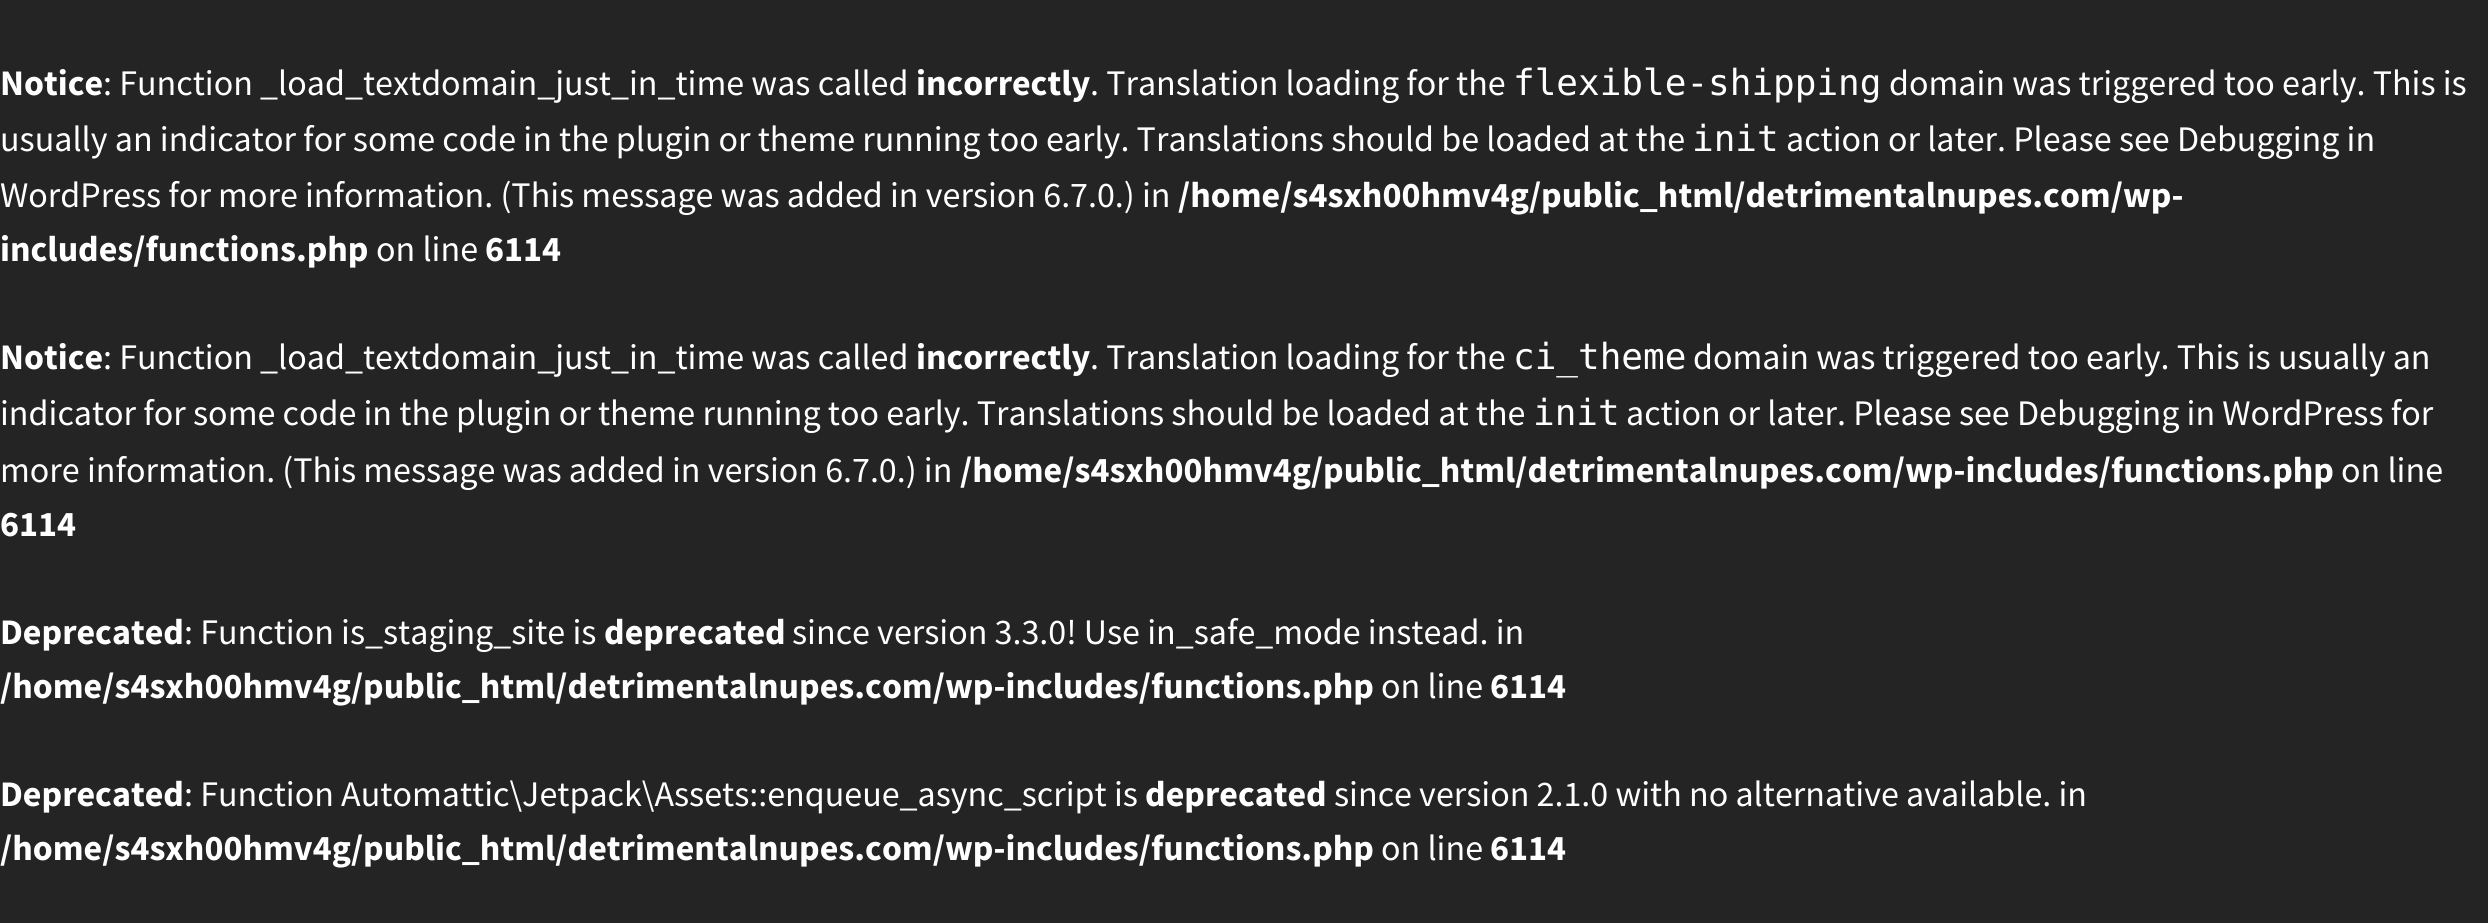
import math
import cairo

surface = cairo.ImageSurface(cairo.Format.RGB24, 2488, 923)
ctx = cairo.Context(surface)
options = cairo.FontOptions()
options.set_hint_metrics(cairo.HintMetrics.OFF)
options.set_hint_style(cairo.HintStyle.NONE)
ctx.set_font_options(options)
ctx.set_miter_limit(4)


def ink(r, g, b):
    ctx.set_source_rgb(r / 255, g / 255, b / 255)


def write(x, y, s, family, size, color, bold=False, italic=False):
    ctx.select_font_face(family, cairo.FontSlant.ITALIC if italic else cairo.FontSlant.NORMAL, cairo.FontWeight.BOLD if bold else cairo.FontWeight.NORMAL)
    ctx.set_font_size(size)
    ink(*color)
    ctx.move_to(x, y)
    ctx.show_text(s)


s1 = dict(family="Source Sans Pro", size=36, color=(255, 255, 255), bold=True)
s2 = dict(family="Source Sans Pro", size=36, color=(255, 255, 255))
s3 = dict(family="DejaVu Sans Mono", size=36, color=(255, 255, 255))

ink(36, 36, 36)
ctx.paint()
write(0, 95, "Notice", **s1)
write(103, 95, ": Function _load_textdomain_just_in_time was called", **s2)
write(916, 95, "incorrectly", **s1)
write(1090, 95, ". Translation loading for the", **s2)
write(1513, 95, "flexible-shipping", **s3)
write(1889, 95, "domain was triggered too early. This is", **s2)
write(0, 151, "usually an indicator for some code in the plugin or theme running too early. Translations should be loaded at the", **s2)
write(1692, 151, "init", **s3)
write(1786, 151, "action or later. Please see Debugging in", **s2)
write(0, 207, "WordPress for more information. (This message was added in version 6.7.0.) in", **s2)
write(1178, 207, "/home/s4sxh00hmv4g/public_html/detrimentalnupes.com/wp-", **s1)
write(0, 261, "includes/functions.php", **s1)
write(376, 261, "on line", **s2)
write(485, 261, "6114", **s1)
write(0, 369, "Notice", **s1)
write(103, 369, ": Function _load_textdomain_just_in_time was called", **s2)
write(916, 369, "incorrectly", **s1)
write(1090, 369, ". Translation loading for the", **s2)
write(1513, 369, "ci_theme", **s3)
write(1693, 369, "domain was triggered too early. This is usually an", **s2)
write(0, 425, "indicator for some code in the plugin or theme running too early. Translations should be loaded at the", **s2)
write(1533, 425, "init", **s3)
write(1626, 425, "action or later. Please see Debugging in WordPress for", **s2)
write(0, 482, "more information. (This message was added in version 6.7.0.) in", **s2)
write(960, 482, "/home/s4sxh00hmv4g/public_html/detrimentalnupes.com/wp-includes/functions.php", **s1)
write(2341, 482, "on line", **s2)
write(0, 536, "6114", **s1)
write(0, 644, "Deprecated", **s1)
write(184, 644, ": Function is_staging_site is", **s2)
write(604, 644, "deprecated", **s1)
write(792, 644, "since version 3.3.0! Use in_safe_mode instead. in", **s2)
write(0, 698, "/home/s4sxh00hmv4g/public_html/detrimentalnupes.com/wp-includes/functions.php", **s1)
write(1381, 698, "on line", **s2)
write(1490, 698, "6114", **s1)
write(0, 806, "Deprecated", **s1)
write(184, 806, ": Function Automattic\\Jetpack\\Assets::enqueue_async_script is", **s2)
write(1145, 806, "deprecated", **s1)
write(1334, 806, "since version 2.1.0 with no alternative available. in", **s2)
write(0, 860, "/home/s4sxh00hmv4g/public_html/detrimentalnupes.com/wp-includes/functions.php", **s1)
write(1381, 860, "on line", **s2)
write(1490, 860, "6114", **s1)
surface.write_to_png("screenshot.png")
